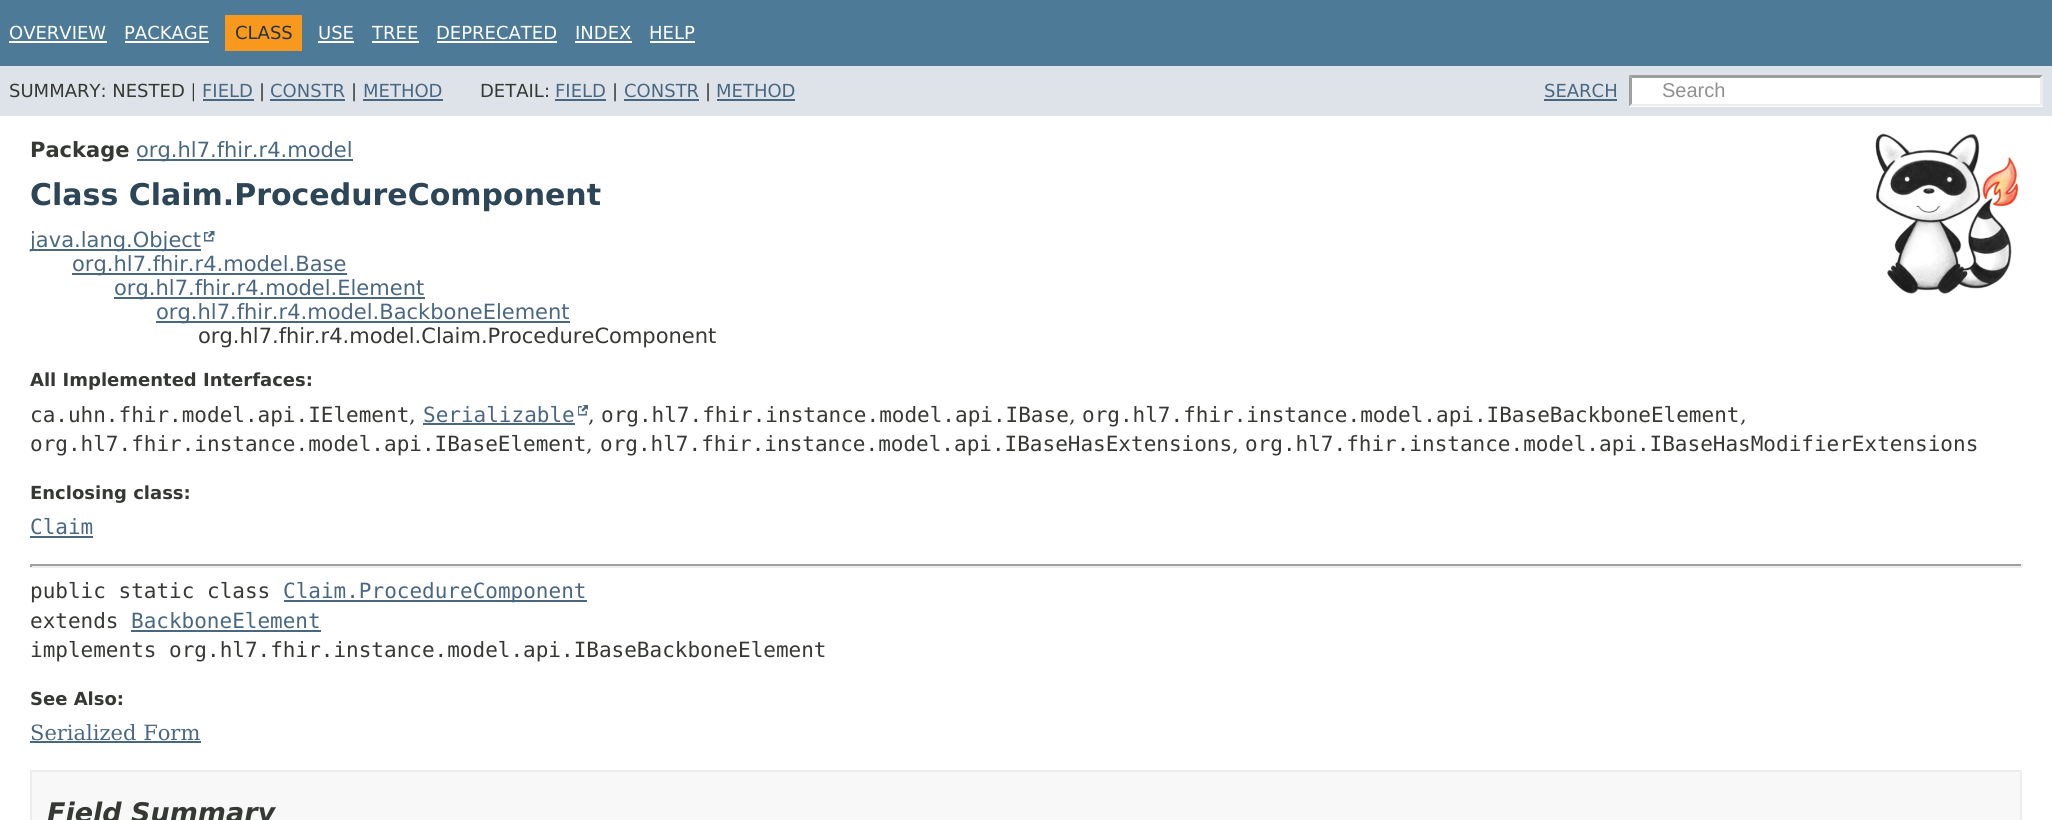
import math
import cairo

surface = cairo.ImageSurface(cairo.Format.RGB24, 2052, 820)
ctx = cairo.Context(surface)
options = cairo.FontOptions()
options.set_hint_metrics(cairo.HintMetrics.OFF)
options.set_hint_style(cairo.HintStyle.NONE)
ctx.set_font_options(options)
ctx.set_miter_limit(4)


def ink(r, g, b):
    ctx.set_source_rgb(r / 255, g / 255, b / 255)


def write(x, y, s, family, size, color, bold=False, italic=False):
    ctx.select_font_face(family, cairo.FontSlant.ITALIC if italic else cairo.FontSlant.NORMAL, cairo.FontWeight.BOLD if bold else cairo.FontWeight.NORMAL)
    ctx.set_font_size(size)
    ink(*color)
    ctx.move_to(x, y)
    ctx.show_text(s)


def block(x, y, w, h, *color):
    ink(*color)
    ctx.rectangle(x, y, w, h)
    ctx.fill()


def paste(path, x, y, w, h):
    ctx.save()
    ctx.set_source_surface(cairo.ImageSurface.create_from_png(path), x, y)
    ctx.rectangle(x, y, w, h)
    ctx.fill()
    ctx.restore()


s1 = dict(family="DejaVu Sans", size=18, color=(255, 255, 255))
s2 = dict(family="DejaVu Sans", size=18, color=(37, 52, 65))
s3 = dict(family="DejaVu Sans", size=18, color=(53, 56, 51))
s4 = dict(family="DejaVu Sans", size=18, color=(74, 103, 130))
s5 = dict(family="Liberation Sans", size=20, color=(144, 144, 144))
s6 = dict(family="DejaVu Sans", size=21, color=(53, 56, 51), bold=True)
s7 = dict(family="DejaVu Sans", size=21, color=(74, 103, 130))
s8 = dict(family="DejaVu Sans", size=30, color=(44, 69, 87), bold=True)
s9 = dict(family="DejaVu Sans", size=21, color=(53, 56, 51))
s10 = dict(family="DejaVu Sans", size=18, color=(53, 56, 51), bold=True)
s11 = dict(family="DejaVu Sans Mono", size=21, color=(53, 56, 51))
s12 = dict(family="DejaVu Serif", size=21, color=(53, 56, 51))
s13 = dict(family="DejaVu Sans Mono", size=21, color=(74, 103, 130))
s14 = dict(family="DejaVu Serif", size=21, color=(74, 103, 130))
s15 = dict(family="DejaVu Sans", size=27, color=(53, 56, 51), bold=True, italic=True)

ink(255, 255, 255)
ctx.paint()
block(0, 0, 2052, 66, 77, 122, 151)
write(9, 39, "OVERVIEW", **s1)
block(9, 41, 98, 2, 255, 255, 255)
write(124, 39, "PACKAGE", **s1)
block(125, 41, 84, 2, 255, 255, 255)
block(225, 15, 77, 36, 248, 152, 29)
write(235, 39, "CLASS", **s2)
write(318, 39, "USE", **s1)
block(318, 41, 36, 2, 255, 255, 255)
write(372, 39, "TREE", **s1)
block(372, 41, 47, 2, 255, 255, 255)
write(436, 39, "DEPRECATED", **s1)
block(437, 41, 120, 2, 255, 255, 255)
write(575, 39, "INDEX", **s1)
block(575, 41, 57, 2, 255, 255, 255)
write(649, 39, "HELP", **s1)
block(650, 41, 45, 2, 255, 255, 255)
block(0, 66, 2052, 50, 222, 227, 233)
write(9, 97, "SUMMARY: NESTED |", **s3)
write(202, 97, "FIELD", **s4)
block(203, 99, 51, 2, 74, 103, 130)
write(259, 97, "|", **s3)
write(270, 97, "CONSTR", **s4)
block(270, 99, 75, 2, 74, 103, 130)
write(351, 97, "|", **s3)
write(363, 97, "METHOD", **s4)
block(363, 99, 80, 2, 74, 103, 130)
write(480, 97, "DETAIL:", **s3)
write(555, 97, "FIELD", **s4)
block(555, 99, 51, 2, 74, 103, 130)
write(612, 97, "|", **s3)
write(624, 97, "CONSTR", **s4)
block(624, 99, 75, 2, 74, 103, 130)
write(705, 97, "|", **s3)
write(716, 97, "METHOD", **s4)
block(717, 99, 78, 2, 74, 103, 130)
write(1544, 97, "SEARCH", **s4)
block(1544, 99, 73, 2, 74, 103, 130)
block(1629, 75, 414, 32, 255, 255, 255)
ink(158, 158, 158)
ctx.new_path()
ctx.move_to(1629, 75)
ctx.line_to(2043, 75)
ctx.line_to(2040, 78)
ctx.line_to(1632, 78)
ctx.close_path()
ctx.fill()
ink(237, 237, 237)
ctx.new_path()
ctx.move_to(2043, 75)
ctx.line_to(2043, 106.5)
ctx.line_to(2040, 103.5)
ctx.line_to(2040, 78)
ctx.close_path()
ctx.fill()
ctx.new_path()
ctx.move_to(2043, 106)
ctx.line_to(1629, 106)
ctx.line_to(1632, 104)
ctx.line_to(2040, 104)
ctx.close_path()
ctx.fill()
ink(158, 158, 158)
ctx.new_path()
ctx.move_to(1629, 106.5)
ctx.line_to(1629, 75)
ctx.line_to(1632, 78)
ctx.line_to(1632, 103.5)
ctx.close_path()
ctx.fill()
write(1662, 97, "Search", **s5)
write(30, 157, "Package", **s6)
block(137, 159, 216, 2, 74, 103, 130)
write(136, 157, "org.hl7.fhir.r4.model", **s7)
write(30, 205, "Class Claim.ProcedureComponent", **s8)
paste("pic1.png", 1875, 133, 144, 161)
block(30, 249, 171, 2, 74, 103, 130)
write(30, 247, "java.lang.Object", **s7)
paste("pic2.png", 204, 231, 11, 11)
block(72, 273, 275, 2, 74, 103, 130)
write(72, 271, "org.hl7.fhir.r4.model.Base", **s7)
block(114, 297, 311, 2, 74, 103, 130)
write(114, 295, "org.hl7.fhir.r4.model.Element", **s7)
block(156, 321, 414, 2, 74, 103, 130)
write(156, 319, "org.hl7.fhir.r4.model.BackboneElement", **s7)
write(198, 343, "org.hl7.fhir.r4.model.Claim.ProcedureComponent", **s9)
write(30, 386, "All Implemented Interfaces:", **s10)
write(30, 422, "ca.uhn.fhir.model.api.IElement", **s11)
write(409, 422, ",", **s12)
write(423, 422, "Serializable", **s13)
block(423, 423, 152, 2, 74, 103, 130)
paste("pic3.png", 578, 405, 10, 11)
write(588, 422, ",", **s12)
write(601, 422, "org.hl7.fhir.instance.model.api.IBase", **s11)
write(1069, 422, ",", **s12)
write(1082, 422, "org.hl7.fhir.instance.model.api.IBaseBackboneElement", **s11)
write(1740, 422, ",", **s12)
write(30, 451, "org.hl7.fhir.instance.model.api.IBaseElement", **s11)
write(586, 451, ",", **s12)
write(600, 451, "org.hl7.fhir.instance.model.api.IBaseHasExtensions", **s11)
write(1232, 451, ",", **s12)
write(1245, 451, "org.hl7.fhir.instance.model.api.IBaseHasModifierExtensions", **s11)
write(30, 499, "Enclosing class:", **s10)
write(30, 534, "Claim", **s13)
block(30, 536, 63, 2, 74, 103, 130)
block(30, 564, 1992, 2, 159, 159, 159)
block(2021, 564, 2, 3, 238, 238, 238)
block(30, 566, 1992, 2, 238, 238, 238)
block(30, 564, 2, 3, 159, 159, 159)
write(30, 598, "public static class", **s11)
block(284, 600, 303, 2, 74, 103, 130)
write(283, 598, "Claim.ProcedureComponent", **s13)
write(30, 628, "extends", **s11)
write(131, 628, "BackboneElement", **s13)
block(131, 630, 190, 2, 74, 103, 130)
write(30, 657, "implements org.hl7.fhir.instance.model.api.IBaseBackboneElement", **s11)
write(30, 705, "See Also:", **s10)
write(30, 740, "Serialized Form", **s14)
block(30, 741, 171, 2, 74, 103, 130)
ink(248, 248, 248)
ctx.rectangle(31, 771, 1990, 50)
ctx.fill_preserve()
ink(237, 237, 237)
ctx.stroke()
write(47, 822, "Field Summary", **s15)
surface.write_to_png("screenshot.png")
